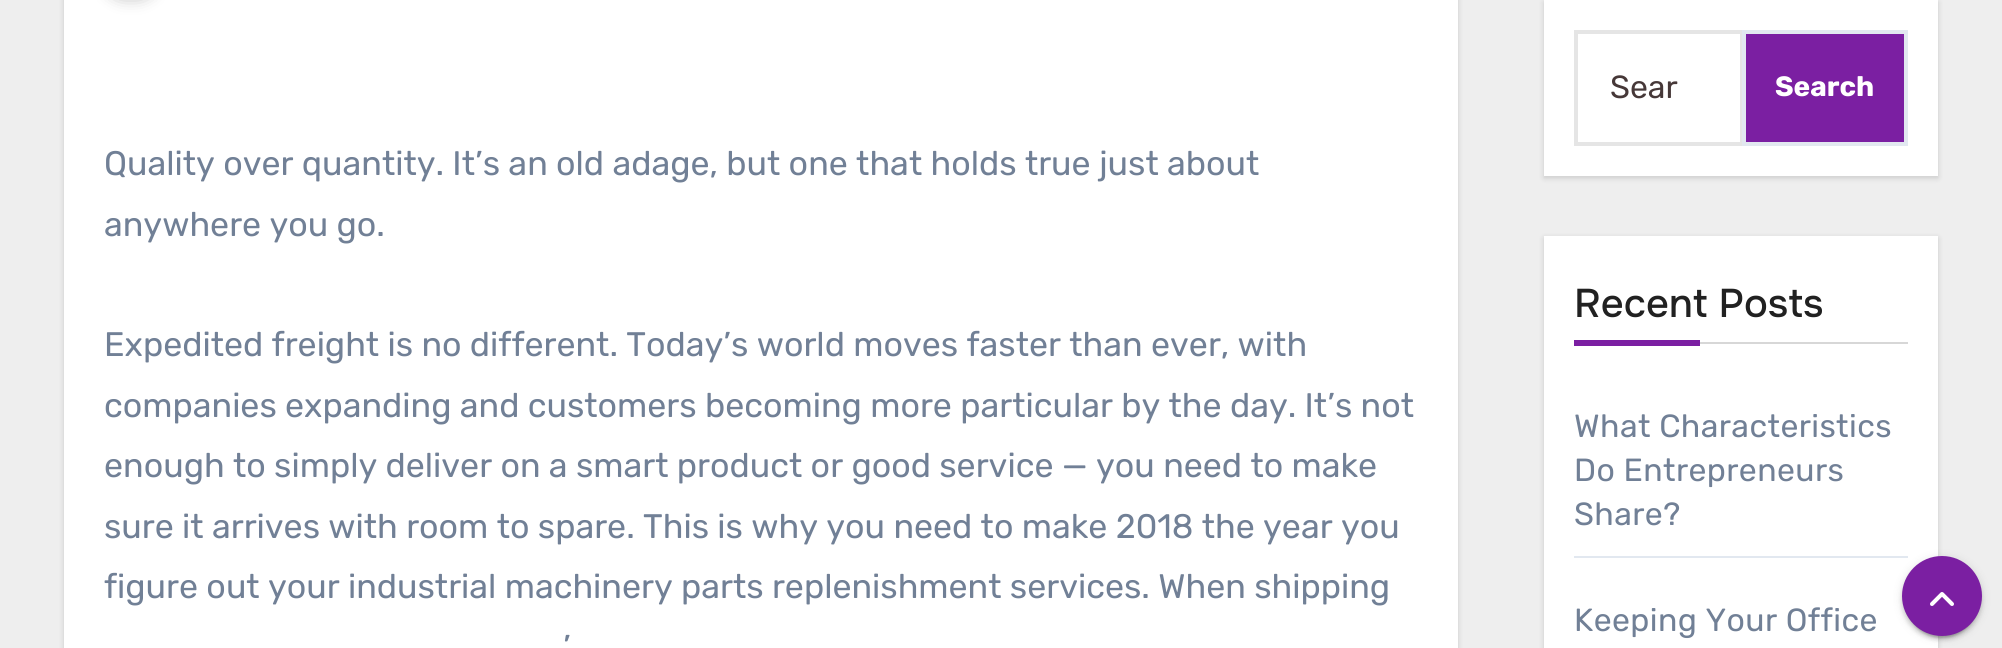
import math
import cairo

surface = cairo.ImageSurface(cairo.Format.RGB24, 2002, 648)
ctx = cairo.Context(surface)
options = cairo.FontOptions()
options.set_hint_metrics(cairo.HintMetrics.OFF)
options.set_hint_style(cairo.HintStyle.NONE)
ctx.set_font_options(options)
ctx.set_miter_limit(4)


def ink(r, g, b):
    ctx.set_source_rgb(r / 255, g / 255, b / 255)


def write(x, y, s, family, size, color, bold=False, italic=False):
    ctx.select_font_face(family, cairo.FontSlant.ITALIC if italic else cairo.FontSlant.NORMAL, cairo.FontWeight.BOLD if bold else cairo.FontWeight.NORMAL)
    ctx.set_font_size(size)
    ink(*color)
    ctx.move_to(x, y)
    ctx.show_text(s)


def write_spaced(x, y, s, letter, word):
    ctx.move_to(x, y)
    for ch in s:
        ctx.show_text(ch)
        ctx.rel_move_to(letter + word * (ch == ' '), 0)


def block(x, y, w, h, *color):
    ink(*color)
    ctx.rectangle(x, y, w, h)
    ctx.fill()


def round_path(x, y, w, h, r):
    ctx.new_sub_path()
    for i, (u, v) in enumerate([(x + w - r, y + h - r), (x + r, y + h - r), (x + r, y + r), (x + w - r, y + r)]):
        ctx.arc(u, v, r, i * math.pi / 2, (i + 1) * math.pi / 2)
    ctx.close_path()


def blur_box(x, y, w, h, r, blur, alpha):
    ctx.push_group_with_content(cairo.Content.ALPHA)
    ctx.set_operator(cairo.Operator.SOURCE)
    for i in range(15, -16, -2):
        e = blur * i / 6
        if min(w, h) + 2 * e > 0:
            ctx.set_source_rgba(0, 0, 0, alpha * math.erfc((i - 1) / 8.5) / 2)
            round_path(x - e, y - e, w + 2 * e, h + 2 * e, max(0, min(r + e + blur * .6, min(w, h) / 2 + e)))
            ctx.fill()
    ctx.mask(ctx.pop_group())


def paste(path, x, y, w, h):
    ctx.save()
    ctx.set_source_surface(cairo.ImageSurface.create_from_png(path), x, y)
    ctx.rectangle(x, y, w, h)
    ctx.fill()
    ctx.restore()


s1 = dict(family="Rubik Light", size=34, color=(113, 128, 150))
s2 = dict(family="Rubik Light", size=32, color=(70, 56, 56))
s3 = dict(family="Rubik", size=28, color=(255, 255, 255), bold=True)
s4 = dict(family="Onest Medium", size=40, color=(33, 33, 33))

ink(238, 238, 238)
ctx.paint()
ink(0, 0, 0)
blur_box(64, -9, 1394, 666, 0, 3, 0.15)
block(64, 0, 1394, 648, 255, 255, 255)
ink(33, 33, 33)
blur_box(104, -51, 54, 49, 27, 8, 0.3)
write(104, 175, "Quality over quantity. It’s an old adage, but one that holds true just about", **s1)
write(104, 236, "anywhere you go.", **s1)
write(104, 356, "Expedited freight is no different. Today’s world moves faster than ever, with", **s1)
write(104, 417, "companies expanding and customers becoming more particular by the day. It’s not", **s1)
write(104, 477, "enough to simply deliver on a smart product or good service — you need to make", **s1)
write(104, 538, "sure it arrives with room to spare. This is why you need to make 2018 the year you", **s1)
write(104, 598, "figure out your industrial machinery parts replenishment services. When shipping", **s1)
write(563, 659, "’", **s1)
ink(0, 0, 0)
blur_box(1544, 2, 394, 176, 0, 3, 0.15)
block(1544, 0, 394, 176, 255, 255, 255)
ctx.rectangle(1576, 32, 166, 112)
ink(229, 229, 229)
ctx.set_line_width(4)
ctx.stroke()
write(1610, 98, "Sear", **s2)
ink(123, 31, 162)
ctx.rectangle(1744, 32, 162, 112)
ctx.fill_preserve()
ink(226, 232, 240)
ctx.stroke()
write(1775, 96, "Search", **s3)
ink(0, 0, 0)
blur_box(1544, 238, 394, 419, 0, 3, 0.15)
block(1544, 236, 394, 412, 255, 255, 255)
block(1700, 342, 208, 2, 215, 215, 215)
write(1574, 317, "Recent Posts", **s4)
block(1574, 340, 126, 6, 123, 31, 162)
block(1574, 556, 334, 2, 226, 232, 240)
ctx.select_font_face("Rubik Light")
ctx.set_font_size(32)
ink(113, 128, 150)
write_spaced(1574, 437, "What Characteristics", 0.4, 0)
write_spaced(1574, 481, "Do Entrepreneurs", 0.4, 0)
write_spaced(1574, 525, "Share?", 0.4, 0)
write_spaced(1574, 631, "Keeping Your Office", 0.4, 0)
ink(0, 0, 0)
blur_box(1902, 558, 80, 80, 40, 5, 0.12)
blur_box(1906, 566, 72, 72, 36, 1, 0.2)
blur_box(1902, 560, 80, 80, 40, 2, 0.14)
ink(123, 31, 162)
ctx.arc(1942, 596, 38, 0, 2 * math.pi)
ctx.fill_preserve()
ctx.stroke()
paste("pic1.png", 1930, 592, 24, 14)
surface.write_to_png("screenshot.png")
